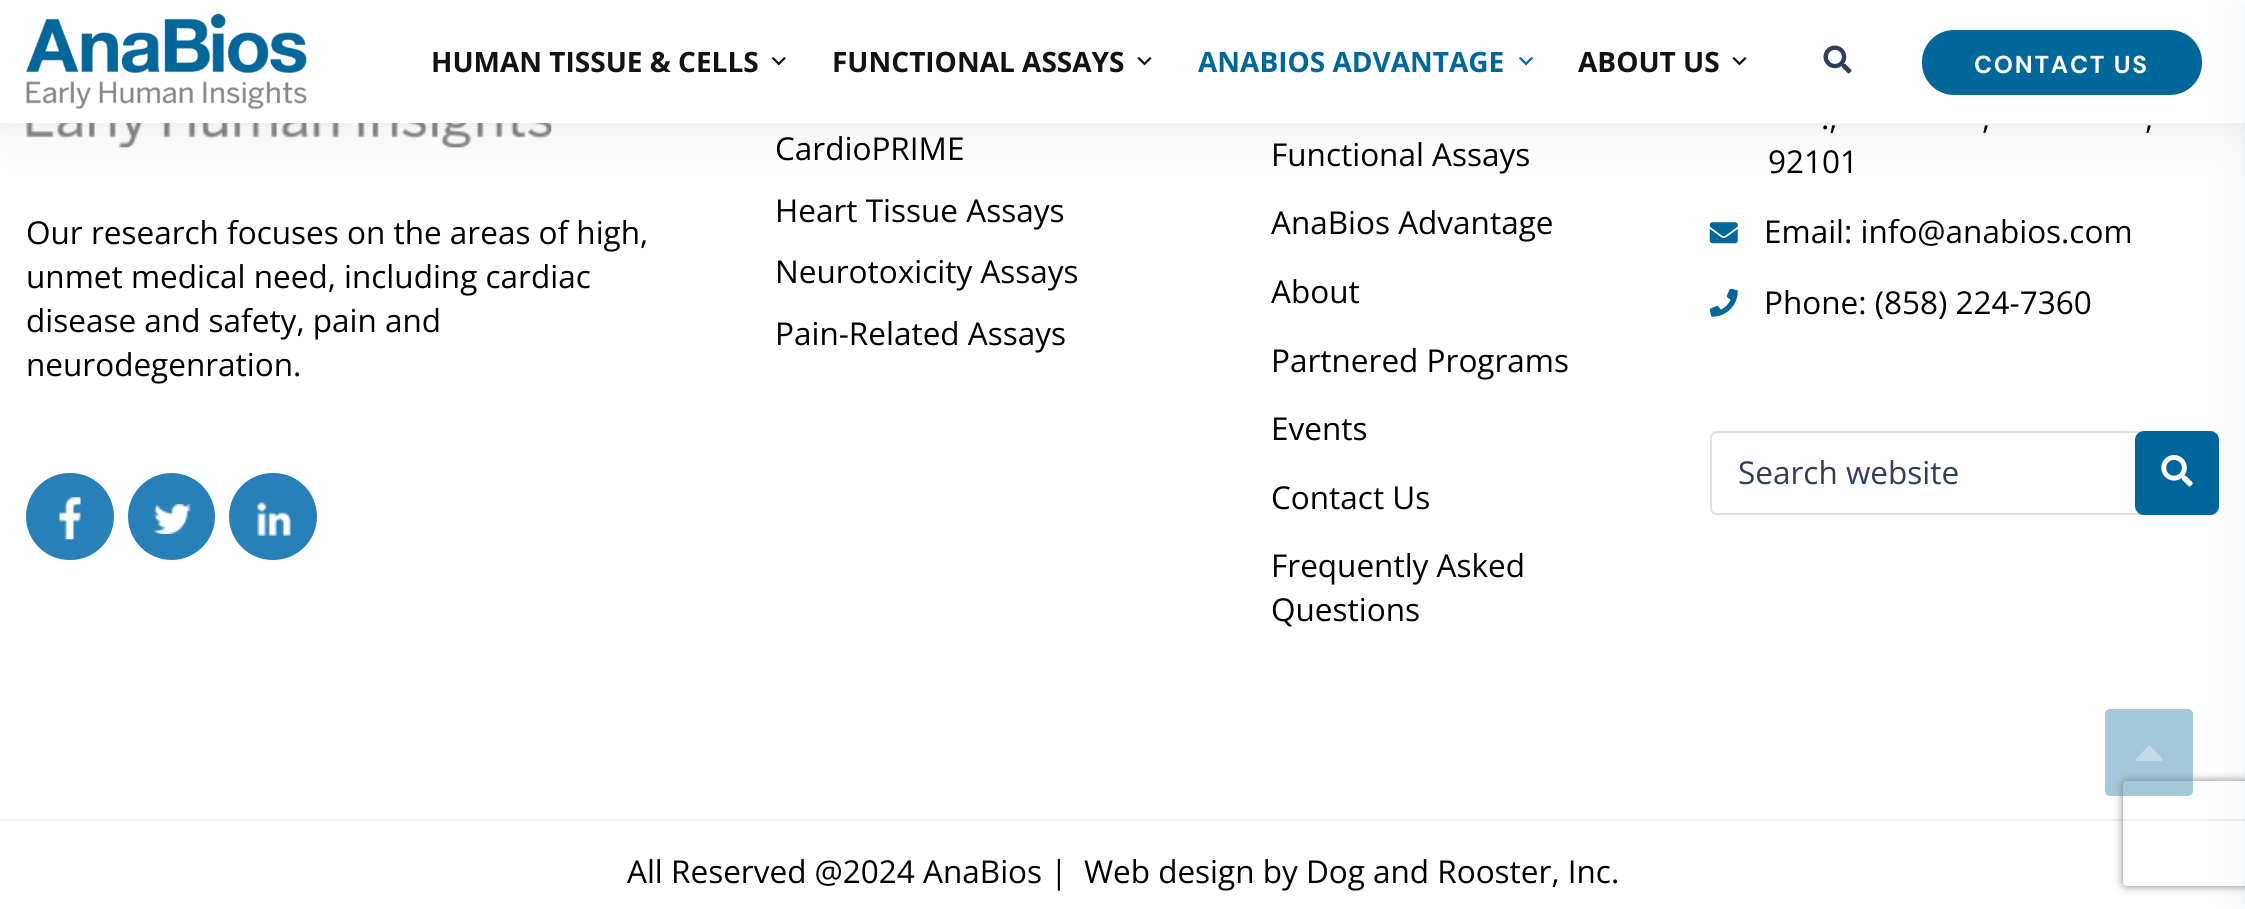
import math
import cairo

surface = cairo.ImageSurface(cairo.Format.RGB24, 2245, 909)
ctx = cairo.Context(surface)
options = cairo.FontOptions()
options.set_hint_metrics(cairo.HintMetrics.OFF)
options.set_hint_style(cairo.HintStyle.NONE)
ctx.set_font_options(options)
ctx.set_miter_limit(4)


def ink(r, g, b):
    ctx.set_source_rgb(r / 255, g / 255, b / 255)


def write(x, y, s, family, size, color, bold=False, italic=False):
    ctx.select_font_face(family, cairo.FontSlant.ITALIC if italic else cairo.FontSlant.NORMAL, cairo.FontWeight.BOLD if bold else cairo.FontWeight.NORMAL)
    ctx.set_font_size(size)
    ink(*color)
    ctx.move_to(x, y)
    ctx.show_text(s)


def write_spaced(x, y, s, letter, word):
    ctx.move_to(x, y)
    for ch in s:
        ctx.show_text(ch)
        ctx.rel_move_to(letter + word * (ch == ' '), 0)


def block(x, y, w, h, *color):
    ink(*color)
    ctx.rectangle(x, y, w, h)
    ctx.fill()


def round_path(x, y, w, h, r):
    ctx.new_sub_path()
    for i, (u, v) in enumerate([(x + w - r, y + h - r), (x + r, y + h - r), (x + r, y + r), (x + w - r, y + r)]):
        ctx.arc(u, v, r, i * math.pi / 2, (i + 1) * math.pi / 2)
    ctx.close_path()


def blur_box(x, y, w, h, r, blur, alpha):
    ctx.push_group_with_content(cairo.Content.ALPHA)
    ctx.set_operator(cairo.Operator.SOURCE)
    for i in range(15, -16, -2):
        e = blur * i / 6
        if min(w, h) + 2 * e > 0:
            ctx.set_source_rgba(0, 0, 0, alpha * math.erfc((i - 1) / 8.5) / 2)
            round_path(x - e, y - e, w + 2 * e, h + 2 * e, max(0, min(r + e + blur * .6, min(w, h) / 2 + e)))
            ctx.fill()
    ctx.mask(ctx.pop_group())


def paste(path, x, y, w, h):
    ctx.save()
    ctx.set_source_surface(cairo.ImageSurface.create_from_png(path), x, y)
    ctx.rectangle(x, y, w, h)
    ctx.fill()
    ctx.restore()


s1 = dict(family="Open Sans", size=28, color=(18, 18, 18), bold=True)
s2 = dict(family="Open Sans", size=28, color=(0, 103, 154), bold=True)
s3 = dict(family="Open Sans", size=31.5, color=(0, 0, 0))
s4 = dict(family="Open Sans", size=31.5, color=(49, 62, 91))

ink(255, 255, 255)
ctx.paint()
paste("pic6.png", 26, 123, 526, 25)
ink(0, 0, 0)
blur_box(0, 0, 2245, 123, 0, 26, 0.1)
block(0, 0, 2245, 123, 255, 255, 255)
paste("pic1.png", 26, 13, 281, 96)
write(431, 72, "HUMAN TISSUE & CELLS", **s1)
paste("pic2.png", 771, 57, 15, 9)
write(832, 72, "FUNCTIONAL ASSAYS", **s1)
paste("pic3.png", 1137, 57, 15, 9)
write(1198, 72, "ANABIOS ADVANTAGE", **s2)
paste("pic4.png", 1518, 57, 16, 9)
write(1578, 72, "ABOUT US", **s1)
paste("pic3.png", 1732, 57, 15, 9)
paste("pic5.png", 1823, 45, 29, 29)
ink(0, 103, 154)
round_path(1922, 30, 280, 65, 32)
ctx.fill()
ctx.select_font_face("DM Sans", cairo.FontSlant.NORMAL, cairo.FontWeight.BOLD)
ctx.set_font_size(24.5)
ink(255, 255, 255)
write_spaced(1974, 73, "CONTACT US", 1.75, 0)
write(26, 244, "Our research focuses on the areas of high,", **s3)
write(26, 288, "unmet medical need, including cardiac", **s3)
write(26, 332, "disease and safety, pain and", **s3)
write(26, 376, "neurodegenration.", **s3)
ink(41, 128, 185)
round_path(26, 473, 88, 87, 43.5)
ctx.fill()
paste("pic7.png", 59, 497, 22, 43)
ctx.arc(171.5, 516.5, 43.5, 0, 2 * math.pi)
ctx.fill()
paste("pic8.png", 154, 504, 37, 30)
round_path(229, 473, 88, 87, 43.5)
ctx.fill()
paste("pic9.png", 257, 502, 34, 34)
write(775, 160, "CardioPRIME", **s3)
write(775, 222, "Heart Tissue Assays", **s3)
write(775, 283, "Neurotoxicity Assays", **s3)
write(775, 345, "Pain-Related Assays", **s3)
write(1271, 166, "Functional Assays", **s3)
write(1271, 234, "AnaBios Advantage", **s3)
write(1271, 303, "About", **s3)
write(1271, 372, "Partnered Programs", **s3)
write(1271, 440, "Events", **s3)
write(1271, 509, "Contact Us", **s3)
write(1271, 577, "Frequently Asked", **s3)
write(1271, 621, "Questions", **s3)
write(1821, 129, ".,", **s3)
write(1982, 129, ",", **s3)
write(2145, 129, ",", **s3)
write(1768, 173, "92101", **s3)
paste("pic10.png", 1709, 222, 29, 22)
write(1764, 243, "Email: info@anabios.com", **s3)
paste("pic11.png", 1709, 288, 29, 29)
write(1764, 314, "Phone: (858) 224-7360", **s3)
round_path(1711, 432, 507, 82, 6)
ink(224, 225, 225)
ctx.stroke()
write(1738, 484, "Search website", **s4)
ink(0, 103, 154)
round_path(2135, 431, 84, 84, 9)
ctx.fill()
paste("pic12.png", 2161, 455, 32, 32)
ink(163, 200, 218)
round_path(2105, 709, 88, 87, 5)
ctx.fill()
paste("pic13.png", 2136, 746, 27, 15)
block(0, 819, 2245, 2, 240, 240, 240)
write(627, 883, "All Reserved @2024 AnaBios |  Web design by Dog and Rooster, Inc.", **s3)
ink(44, 101, 144)
blur_box(2245, 0, 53, 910, 0, 17.5, 0.1)
ctx.save()
ctx.set_fill_rule(cairo.FillRule.EVEN_ODD)
ctx.new_path()
ctx.move_to(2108, 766)
ctx.line_to(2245, 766)
ctx.line_to(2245, 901)
ctx.line_to(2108, 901)
ctx.close_path()
ctx.move_to(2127, 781)
ctx.line_to(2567, 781)
ctx.curve_to(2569, 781, 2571, 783, 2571, 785)
ctx.line_to(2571, 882)
ctx.curve_to(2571, 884, 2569, 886, 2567, 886)
ctx.line_to(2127, 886)
ctx.curve_to(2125, 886, 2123, 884, 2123, 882)
ctx.line_to(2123, 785)
ctx.curve_to(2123, 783, 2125, 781, 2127, 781)
ctx.close_path()
ctx.clip()
ink(128, 128, 128)
blur_box(2123, 781, 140, 105, 4, 4.5, 1)
ctx.restore()
surface.write_to_png("screenshot.png")
